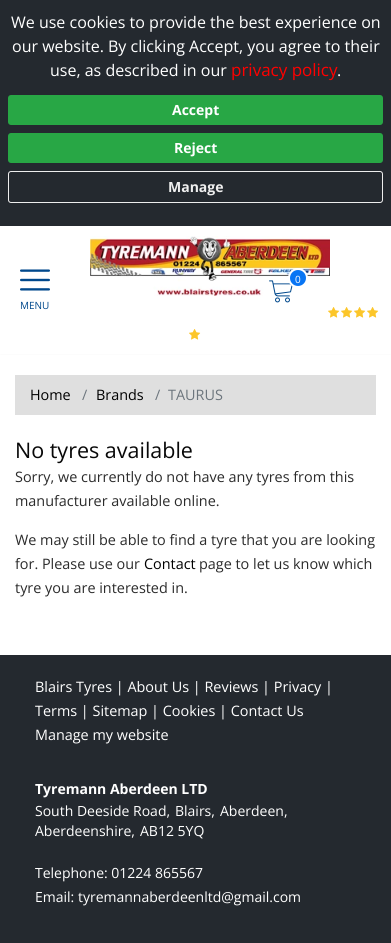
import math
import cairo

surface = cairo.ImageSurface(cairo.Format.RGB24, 391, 943)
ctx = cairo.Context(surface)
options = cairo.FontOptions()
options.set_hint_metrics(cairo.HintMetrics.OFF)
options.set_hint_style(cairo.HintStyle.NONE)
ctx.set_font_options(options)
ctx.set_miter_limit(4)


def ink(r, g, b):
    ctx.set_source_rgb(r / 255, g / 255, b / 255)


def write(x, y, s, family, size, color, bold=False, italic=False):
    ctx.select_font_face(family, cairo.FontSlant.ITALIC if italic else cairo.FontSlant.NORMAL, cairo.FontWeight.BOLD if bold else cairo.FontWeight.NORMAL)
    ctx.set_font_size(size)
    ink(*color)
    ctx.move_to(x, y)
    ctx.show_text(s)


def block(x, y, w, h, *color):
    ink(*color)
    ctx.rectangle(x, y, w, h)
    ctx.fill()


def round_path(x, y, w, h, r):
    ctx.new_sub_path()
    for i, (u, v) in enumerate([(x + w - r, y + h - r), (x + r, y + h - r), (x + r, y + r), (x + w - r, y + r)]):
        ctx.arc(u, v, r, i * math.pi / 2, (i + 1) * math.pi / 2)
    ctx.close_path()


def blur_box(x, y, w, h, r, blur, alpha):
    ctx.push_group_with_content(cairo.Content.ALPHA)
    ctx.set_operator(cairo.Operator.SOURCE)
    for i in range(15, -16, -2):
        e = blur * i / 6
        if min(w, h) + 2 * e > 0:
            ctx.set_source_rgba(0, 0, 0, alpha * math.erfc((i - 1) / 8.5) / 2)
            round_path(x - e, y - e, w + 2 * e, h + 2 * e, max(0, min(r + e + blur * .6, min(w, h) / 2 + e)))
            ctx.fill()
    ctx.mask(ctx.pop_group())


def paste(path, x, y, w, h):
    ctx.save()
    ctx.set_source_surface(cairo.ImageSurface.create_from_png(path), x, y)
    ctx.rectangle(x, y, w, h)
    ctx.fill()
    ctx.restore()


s1 = dict(family="Open Sans", size=16, color=(255, 255, 255))
s2 = dict(family="Open Sans", size=17, color=(255, 0, 0))
s3 = dict(family="Open Sans", size=14, color=(255, 255, 255), bold=True)
s4 = dict(family="Open Sans", size=14, color=(238, 238, 238), bold=True)
s5 = dict(family="Open Sans", size=10, color=(255, 255, 255))
s6 = dict(family="Open Sans", size=10, color=(0, 72, 140))
s7 = dict(family="Open Sans", size=14.4, color=(0, 0, 0))
s8 = dict(family="Open Sans", size=14.4, color=(108, 117, 125))
s9 = dict(family="Open Sans", size=21.5, color=(8, 8, 8))
s10 = dict(family="Open Sans", size=14.4, color=(43, 43, 43))
s11 = dict(family="Open Sans", size=14.4, color=(255, 255, 255))
s12 = dict(family="Open Sans", size=14, color=(255, 255, 255))

ink(255, 255, 255)
ctx.paint()
block(0, 0, 391, 226, 36, 41, 47)
write(11, 28, "We use cookies to provide the best experience on", **s1)
write(12, 52, "our website. By clicking Accept, you agree to their", **s1)
write(50, 76, "use, as described in our", **s1)
write(231, 76, "privacy policy", **s2)
write(337, 76, ".", **s1)
ink(40, 167, 69)
round_path(8, 95, 375, 30, 3)
ctx.fill()
write(172, 115, "Accept", **s3)
ink(40, 167, 69)
round_path(8, 133, 375, 30, 3)
ctx.fill()
write(174, 153, "Reject", **s3)
round_path(8.5, 171.5, 374, 31, 2.5)
ink(238, 238, 238)
ctx.set_line_width(1)
ctx.stroke()
write(168, 192, "Manage", **s4)
paste("pic1.png", 90, 236, 240, 60)
paste("pic2.png", 328, 307, 12, 11)
paste("pic2.png", 341, 307, 12, 11)
paste("pic2.png", 354, 307, 12, 11)
paste("pic2.png", 367, 307, 12, 11)
paste("pic2.png", 189, 329, 12, 11)
paste("pic3.png", 269, 280, 24, 23)
ink(8, 117, 244)
ctx.arc(298, 278, 9, 0, 2 * math.pi)
ctx.fill_preserve()
ink(255, 255, 255)
ctx.set_line_width(2)
ctx.stroke()
write(295, 283, "0", **s5)
paste("pic4.png", 20, 269, 30, 22)
write(20, 309, "MENU", **s6)
ctx.save()
ctx.rectangle(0, 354, 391, 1)
ctx.clip()
ink(187, 187, 187)
blur_box(0, 358, 391, 300, 0, 2, 1)
ctx.restore()
block(15, 375, 361, 40, 223, 223, 223)
write(30, 400, "Home", **s7)
write(82, 400, "/", **s8)
write(96, 400, "Brands", **s7)
write(155, 400, "/", **s8)
write(168, 400, "TAURUS", **s8)
write(15, 458, "No tyres available", **s9)
write(15, 482, "Sorry, we currently do not have any tyres from this", **s10)
write(15, 506, "manufacturer available online.", **s10)
write(15, 545, "We may still be able to find a tyre that you are looking", **s10)
write(15, 569, "for. Please use our", **s10)
write(144, 569, "Contact", **s7)
write(199, 569, "page to let us know which", **s10)
write(15, 593, "tyre you are interested in.", **s10)
block(0, 655, 391, 288, 36, 41, 47)
write(35, 692, "Blairs Tyres | About Us | Reviews | Privacy |", **s11)
write(35, 716, "Terms | Sitemap | Cookies | Contact Us", **s11)
write(35, 740, "Manage my website", **s11)
write(35, 794, "Tyremann Aberdeen LTD", **s3)
write(35, 816, "South Deeside Road,", **s12)
write(175, 816, "Blairs,", **s12)
write(220, 816, "Aberdeen,", **s12)
write(35, 836, "Aberdeenshire,", **s12)
write(140, 836, "AB12 5YQ", **s12)
write(35, 878, "Telephone: 01224 865567", **s12)
write(35, 902, "Email: tyremannaberdeenltd@gmail.com", **s12)
surface.write_to_png("screenshot.png")
